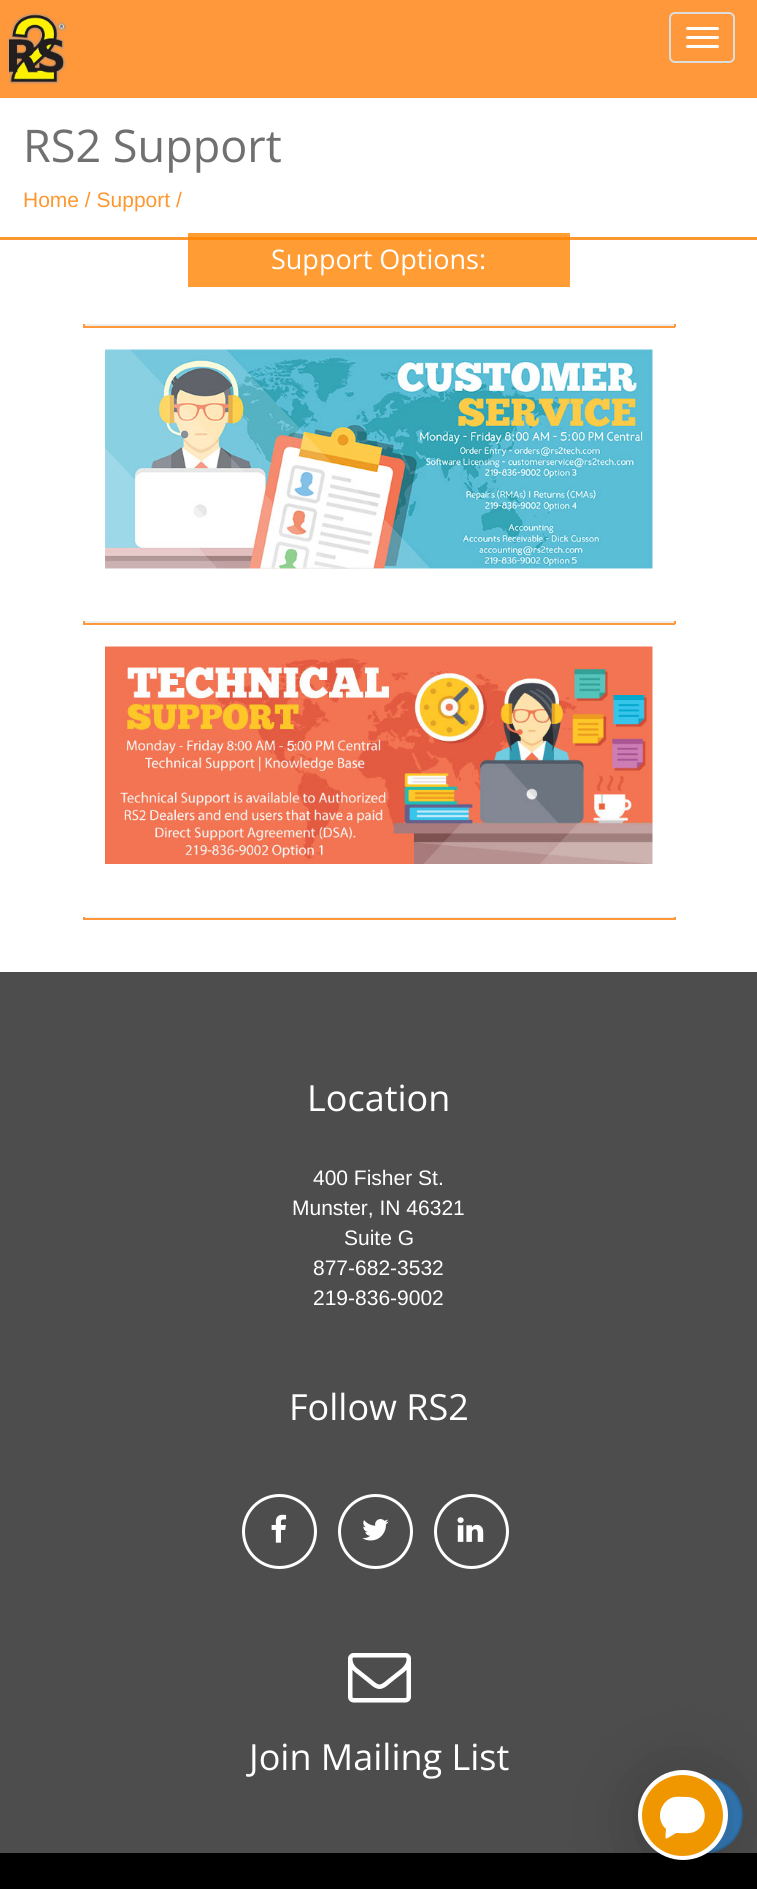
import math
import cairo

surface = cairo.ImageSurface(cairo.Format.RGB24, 757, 1889)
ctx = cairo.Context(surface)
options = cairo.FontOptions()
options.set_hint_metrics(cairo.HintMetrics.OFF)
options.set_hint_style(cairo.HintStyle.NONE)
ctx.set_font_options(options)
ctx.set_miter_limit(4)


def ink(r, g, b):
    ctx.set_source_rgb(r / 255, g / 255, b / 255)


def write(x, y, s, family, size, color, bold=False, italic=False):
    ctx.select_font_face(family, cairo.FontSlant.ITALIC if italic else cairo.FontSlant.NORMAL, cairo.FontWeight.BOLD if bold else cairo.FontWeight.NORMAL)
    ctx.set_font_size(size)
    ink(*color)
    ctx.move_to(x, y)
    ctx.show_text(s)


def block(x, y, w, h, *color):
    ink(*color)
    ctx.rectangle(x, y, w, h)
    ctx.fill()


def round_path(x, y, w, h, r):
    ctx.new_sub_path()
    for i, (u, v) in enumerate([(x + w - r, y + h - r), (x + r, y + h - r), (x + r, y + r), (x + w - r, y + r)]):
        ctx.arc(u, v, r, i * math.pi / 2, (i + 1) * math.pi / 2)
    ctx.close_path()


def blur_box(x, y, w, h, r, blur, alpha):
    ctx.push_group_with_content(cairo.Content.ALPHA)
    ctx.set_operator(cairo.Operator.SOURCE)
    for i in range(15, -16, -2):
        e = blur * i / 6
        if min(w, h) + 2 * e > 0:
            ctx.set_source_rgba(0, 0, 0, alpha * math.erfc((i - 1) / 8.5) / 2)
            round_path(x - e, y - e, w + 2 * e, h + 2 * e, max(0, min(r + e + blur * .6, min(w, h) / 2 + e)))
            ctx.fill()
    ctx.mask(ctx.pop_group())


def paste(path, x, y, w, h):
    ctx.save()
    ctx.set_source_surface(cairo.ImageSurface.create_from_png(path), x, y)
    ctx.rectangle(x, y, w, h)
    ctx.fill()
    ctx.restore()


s1 = dict(family="Open Sans", size=45, color=(112, 112, 112))
s2 = dict(family="Liberation Sans", size=21, color=(253, 152, 48))
s3 = dict(family="Open Sans", size=27, color=(255, 255, 255))
s4 = dict(family="Open Sans", size=36, color=(255, 255, 255))
s5 = dict(family="Liberation Sans", size=21, color=(255, 255, 255))

ink(255, 255, 255)
ctx.paint()
block(188, 233, 382, 54, 255, 156, 51)
block(0, 0, 757, 98, 255, 151, 59)
paste("pic1.png", 7, 13, 60, 71)
round_path(670, 13, 64, 49, 5)
ink(221, 221, 221)
ctx.stroke()
ink(255, 255, 255)
round_path(686, 27, 33, 3, 1.5)
ctx.fill()
round_path(686, 36, 33, 3, 1.5)
ctx.fill()
round_path(686, 45, 33, 3, 1.5)
ctx.fill()
block(0, 237, 757, 3, 253, 152, 48)
block(188, 237, 382, 3, 255, 135, 10)
write(23, 162, "RS2 Support", **s1)
write(23, 207, "Home / Support /", **s2)
write(271, 269, "Support Options:", **s3)
block(83, 324, 592, 2, 238, 238, 238)
block(674, 324, 2, 3, 255, 151, 59)
block(83, 326, 592, 2, 255, 151, 59)
block(83, 324, 2, 3, 255, 151, 59)
paste("pic2.png", 105, 349, 548, 220)
block(83, 621, 592, 2, 238, 238, 238)
block(674, 621, 2, 3, 255, 151, 59)
block(83, 623, 592, 2, 255, 151, 59)
block(83, 621, 2, 3, 255, 151, 59)
paste("pic3.png", 105, 646, 548, 218)
block(83, 917, 592, 1, 238, 238, 238)
block(674, 917, 2, 3, 255, 151, 59)
block(83, 918, 592, 2, 255, 151, 59)
block(83, 917, 2, 3, 255, 151, 59)
block(0, 972, 757, 881, 77, 77, 77)
write(307, 1111, "Location", **s4)
write(313, 1185, "400 Fisher St.", **s5)
write(292, 1215, "Munster, IN 46321", **s5)
write(344, 1245, "Suite G", **s5)
write(313, 1275, "877-682-3532", **s5)
write(313, 1305, "219-836-9002", **s5)
write(289, 1420, "Follow RS2", **s4)
ctx.new_path()
ctx.arc(279.5, 1531.5, 36, 0, 2 * math.pi)
ctx.set_line_width(3)
ctx.stroke()
paste("pic4.png", 271, 1514, 16, 29)
ctx.arc(375.5, 1531.5, 36, 0, 2 * math.pi)
ctx.stroke()
paste("pic5.png", 362, 1519, 27, 22)
ctx.arc(471.5, 1531.5, 36, 0, 2 * math.pi)
ctx.stroke()
paste("pic6.png", 457, 1517, 27, 25)
paste("pic7.png", 348, 1653, 63, 50)
write(249, 1770, "Join Mailing List", **s4)
block(0, 1853, 757, 36, 0, 0, 0)
ink(51, 122, 183)
ctx.new_path()
ctx.arc(705.5, 1815.5, 36.5, 0, 2 * math.pi)
ctx.fill_preserve()
ink(46, 109, 164)
ctx.set_line_width(2)
ctx.stroke()
ink(0, 0, 0)
blur_box(638, 1776, 90, 90, 45, 36, 0.2)
ink(255, 255, 255)
ctx.arc(683, 1815, 45, 0, 2 * math.pi)
ctx.fill()
ink(240, 151, 0)
ctx.arc(682.5, 1815.5, 40.5, 0, 2 * math.pi)
ctx.fill()
ink(255, 255, 255)
ctx.set_fill_rule(cairo.FillRule.EVEN_ODD)
ctx.new_path()
ctx.move_to(687, 1797)
ctx.curve_to(706, 1797, 712, 1824, 694, 1832)
ctx.curve_to(689, 1834, 682, 1833, 676, 1833)
ctx.curve_to(664, 1840, 665, 1842, 666, 1829)
ctx.curve_to(656, 1820, 659, 1804, 671, 1798)
ctx.curve_to(676, 1796, 682, 1797, 687, 1797)
ctx.close_path()
ctx.fill()
surface.write_to_png("screenshot.png")
